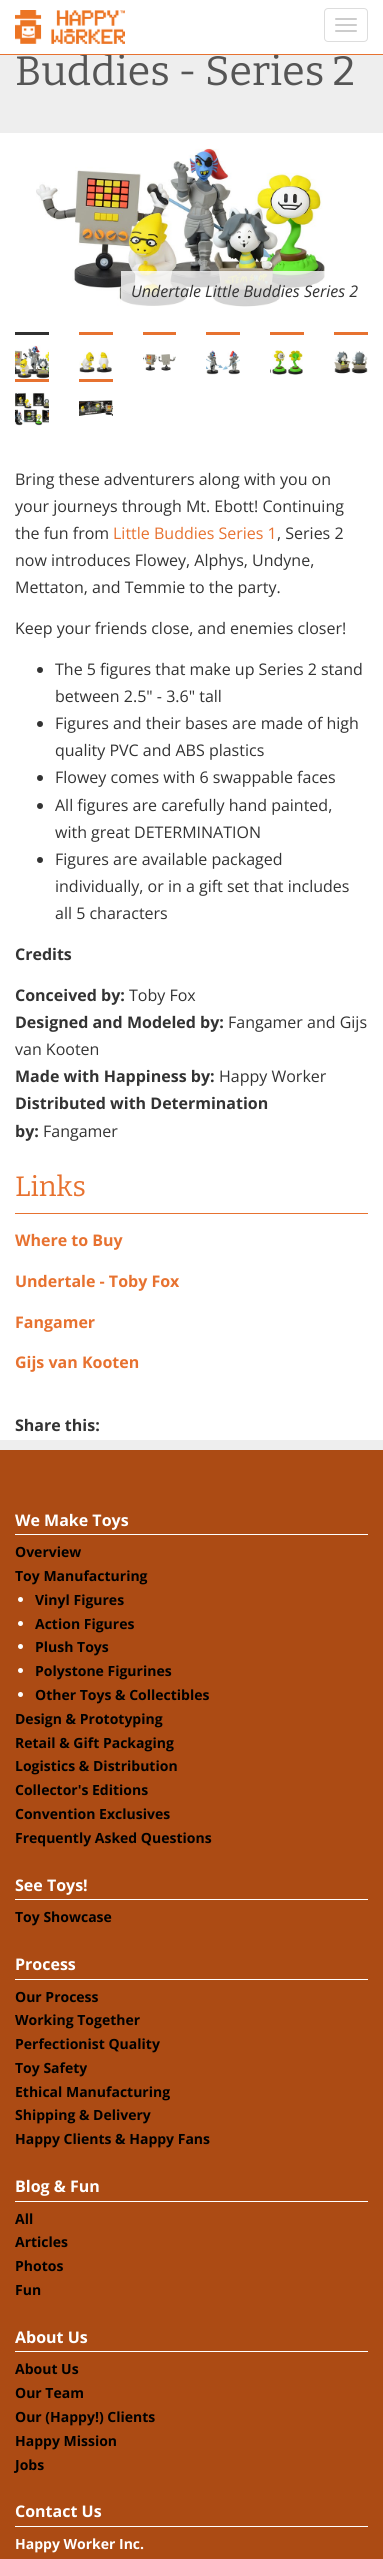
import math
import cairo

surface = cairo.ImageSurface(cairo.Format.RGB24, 383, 2559)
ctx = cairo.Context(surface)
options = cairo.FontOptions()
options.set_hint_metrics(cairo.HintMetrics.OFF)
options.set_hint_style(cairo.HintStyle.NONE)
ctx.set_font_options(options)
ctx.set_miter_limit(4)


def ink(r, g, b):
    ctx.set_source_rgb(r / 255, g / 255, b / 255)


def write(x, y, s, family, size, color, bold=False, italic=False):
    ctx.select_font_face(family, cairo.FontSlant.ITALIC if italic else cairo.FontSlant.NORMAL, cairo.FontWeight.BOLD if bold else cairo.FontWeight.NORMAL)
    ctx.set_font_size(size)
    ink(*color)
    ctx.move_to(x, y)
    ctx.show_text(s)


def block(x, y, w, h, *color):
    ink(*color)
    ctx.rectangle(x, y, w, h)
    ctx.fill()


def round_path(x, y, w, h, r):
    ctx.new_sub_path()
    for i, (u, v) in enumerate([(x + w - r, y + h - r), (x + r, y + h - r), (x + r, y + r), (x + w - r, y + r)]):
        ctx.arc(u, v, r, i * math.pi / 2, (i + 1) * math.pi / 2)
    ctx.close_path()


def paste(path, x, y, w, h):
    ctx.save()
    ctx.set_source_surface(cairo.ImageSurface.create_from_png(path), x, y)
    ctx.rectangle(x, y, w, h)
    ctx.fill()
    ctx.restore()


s1 = dict(family="Bitter", size=41, color=(85, 85, 85))
s2 = dict(family="Open Sans", size=16, color=(51, 51, 51), italic=True)
s3 = dict(family="Open Sans", size=16, color=(51, 51, 51))
s4 = dict(family="Open Sans", size=16, color=(231, 114, 48))
s5 = dict(family="Open Sans", size=16, color=(51, 51, 51), bold=True)
s6 = dict(family="Bitter", size=28, color=(231, 114, 48))
s7 = dict(family="Open Sans", size=16, color=(231, 114, 48), bold=True)
s8 = dict(family="Open Sans", size=16, color=(255, 255, 255), bold=True)
s9 = dict(family="Open Sans", size=14, color=(0, 0, 0), bold=True)
s10 = dict(family="Open Sans", size=14, color=(255, 255, 255), bold=True)

ink(255, 255, 255)
ctx.paint()
block(0, 55, 383, 78, 238, 238, 238)
write(15, 85, "Buddies - Series 2", **s1)
block(80, 53, 32, 1, 255, 255, 255)
block(0, 54, 383, 1, 231, 114, 48)
paste("pic1.png", 15, 10, 110, 34)
round_path(324.5, 8.5, 43, 33, 3.5)
ink(221, 221, 221)
ctx.set_line_width(1)
ctx.stroke()
ink(204, 204, 204)
round_path(335, 18, 22, 2, 1)
ctx.fill()
round_path(335, 24, 22, 2, 1)
ctx.fill()
round_path(335, 30, 22, 2, 1)
ctx.fill()
paste("pic2.png", 36, 148, 289, 159)
ctx.set_source_rgba(1, 1, 1, 0.8)
ctx.rectangle(121, 271, 204, 36)
ctx.fill()
write(131, 297, "Undertale Little Buddies Series 2", **s2)
block(15, 332, 34, 3, 49, 49, 49)
paste("pic3.png", 15, 345, 34, 34)
block(79, 332, 34, 3, 231, 114, 48)
paste("pic4.png", 79, 351, 33, 22)
block(143, 332, 33, 3, 231, 114, 48)
paste("pic5.png", 143, 354, 33, 17)
block(206, 332, 34, 3, 231, 114, 48)
paste("pic6.png", 206, 350, 34, 25)
block(270, 332, 34, 3, 231, 114, 48)
paste("pic7.png", 270, 350, 33, 25)
block(334, 332, 34, 3, 231, 114, 48)
paste("pic8.png", 334, 351, 34, 23)
block(15, 379, 34, 3, 231, 114, 48)
paste("pic9.png", 15, 392, 34, 34)
block(79, 379, 34, 3, 231, 114, 48)
paste("pic10.png", 79, 400, 34, 16)
write(15, 485, "Bring these adventurers along with you on", **s3)
write(15, 512, "your journeys through Mt. Ebott! Continuing", **s3)
write(15, 539, "the fun from", **s3)
write(113, 539, "Little Buddies Series 1", **s4)
write(277, 539, ", Series 2", **s3)
write(15, 566, "now introduces Flowey, Alphys, Undyne,", **s3)
write(15, 593, "Mettaton, and Temmie to the party.", **s3)
write(15, 634, "Keep your friends close, and enemies closer!", **s3)
ctx.new_path()
ctx.arc(40, 670, 3, 0, 2 * math.pi)
ctx.fill()
write(55, 675, "The 5 figures that make up Series 2 stand", **s3)
write(55, 702, "between 2.5\" - 3.6\" tall", **s3)
ctx.new_path()
ctx.arc(40, 724, 3, 0, 2 * math.pi)
ctx.fill()
write(55, 729, "Figures and their bases are made of high", **s3)
write(55, 756, "quality PVC and ABS plastics", **s3)
ctx.new_path()
ctx.arc(40, 778, 3, 0, 2 * math.pi)
ctx.fill()
write(55, 783, "Flowey comes with 6 swappable faces", **s3)
ctx.new_path()
ctx.arc(40, 806, 3, 0, 2 * math.pi)
ctx.fill()
write(55, 811, "All figures are carefully hand painted,", **s3)
write(55, 838, "with great DETERMINATION", **s3)
ctx.new_path()
ctx.arc(40, 860, 3, 0, 2 * math.pi)
ctx.fill()
write(55, 865, "Figures are available packaged", **s3)
write(55, 892, "individually, or in a gift set that includes", **s3)
write(55, 919, "all 5 characters", **s3)
write(15, 960, "Credits", **s5)
write(15, 1001, "Conceived by:", **s5)
write(129, 1001, "Toby Fox", **s3)
write(15, 1028, "Designed and Modeled by:", **s5)
write(228, 1028, "Fangamer and Gijs", **s3)
write(15, 1055, "van Kooten", **s3)
write(15, 1082, "Made with Happiness by:", **s5)
write(219, 1082, "Happy Worker", **s3)
write(15, 1109, "Distributed with Determination", **s5)
write(15, 1137, "by:", **s5)
write(43, 1137, "Fangamer", **s3)
block(15, 1213, 353, 1, 231, 114, 48)
write(15, 1196, "Links", **s6)
write(15, 1246, "Where to Buy", **s7)
write(15, 1287, "Undertale - Toby Fox", **s7)
write(15, 1328, "Fangamer", **s7)
write(15, 1368, "Gijs van Kooten", **s7)
write(15, 1431, "Share this:", **s5)
block(0, 1450, 383, 1109, 172, 75, 20)
block(0, 1440, 383, 10, 238, 238, 238)
block(15, 1534, 353, 1, 255, 255, 255)
write(15, 1526, "We Make Toys", **s8)
write(15, 1557, "Overview", **s9)
write(15, 1581, "Toy Manufacturing", **s9)
ink(255, 255, 255)
ctx.new_path()
ctx.arc(20.5, 1599.5, 2.5, 0, 2 * math.pi)
ctx.fill()
write(35, 1605, "Vinyl Figures", **s9)
ink(255, 255, 255)
ctx.new_path()
ctx.arc(20.5, 1623.5, 2.5, 0, 2 * math.pi)
ctx.fill()
write(35, 1629, "Action Figures", **s9)
ink(255, 255, 255)
ctx.new_path()
ctx.arc(20.5, 1646.5, 2.5, 0, 2 * math.pi)
ctx.fill()
write(35, 1652, "Plush Toys", **s9)
ink(255, 255, 255)
ctx.new_path()
ctx.arc(20.5, 1670.5, 2.5, 0, 2 * math.pi)
ctx.fill()
write(35, 1676, "Polystone Figurines", **s9)
ink(255, 255, 255)
ctx.new_path()
ctx.arc(20.5, 1694.5, 2.5, 0, 2 * math.pi)
ctx.fill()
write(35, 1700, "Other Toys & Collectibles", **s9)
write(15, 1724, "Design & Prototyping", **s9)
write(15, 1748, "Retail & Gift Packaging", **s9)
write(15, 1771, "Logistics & Distribution", **s9)
write(15, 1795, "Collector's Editions", **s9)
write(15, 1819, "Convention Exclusives", **s9)
write(15, 1843, "Frequently Asked Questions", **s9)
block(15, 1899, 353, 1, 255, 255, 255)
write(15, 1891, "See Toys!", **s8)
write(15, 1922, "Toy Showcase", **s9)
block(15, 1979, 353, 1, 255, 255, 255)
write(15, 1970, "Process", **s8)
write(15, 2002, "Our Process", **s9)
write(15, 2025, "Working Together", **s9)
write(15, 2049, "Perfectionist Quality", **s9)
write(15, 2073, "Toy Safety", **s9)
write(15, 2097, "Ethical Manufacturing", **s9)
write(15, 2120, "Shipping & Delivery", **s9)
write(15, 2144, "Happy Clients & Happy Fans", **s9)
block(15, 2201, 353, 1, 255, 255, 255)
write(15, 2192, "Blog & Fun", **s8)
write(15, 2224, "All", **s9)
write(15, 2247, "Articles", **s9)
write(15, 2271, "Photos", **s9)
write(15, 2295, "Fun", **s9)
block(15, 2351, 353, 1, 255, 255, 255)
write(15, 2343, "About Us", **s8)
write(15, 2374, "About Us", **s9)
write(15, 2398, "Our Team", **s9)
write(15, 2422, "Our (Happy!) Clients", **s9)
write(15, 2446, "Happy Mission", **s9)
write(15, 2470, "Jobs", **s9)
block(15, 2526, 353, 1, 255, 255, 255)
write(15, 2517, "Contact Us", **s8)
write(15, 2549, "Happy Worker Inc.", **s10)
surface.write_to_png("screenshot.png")
